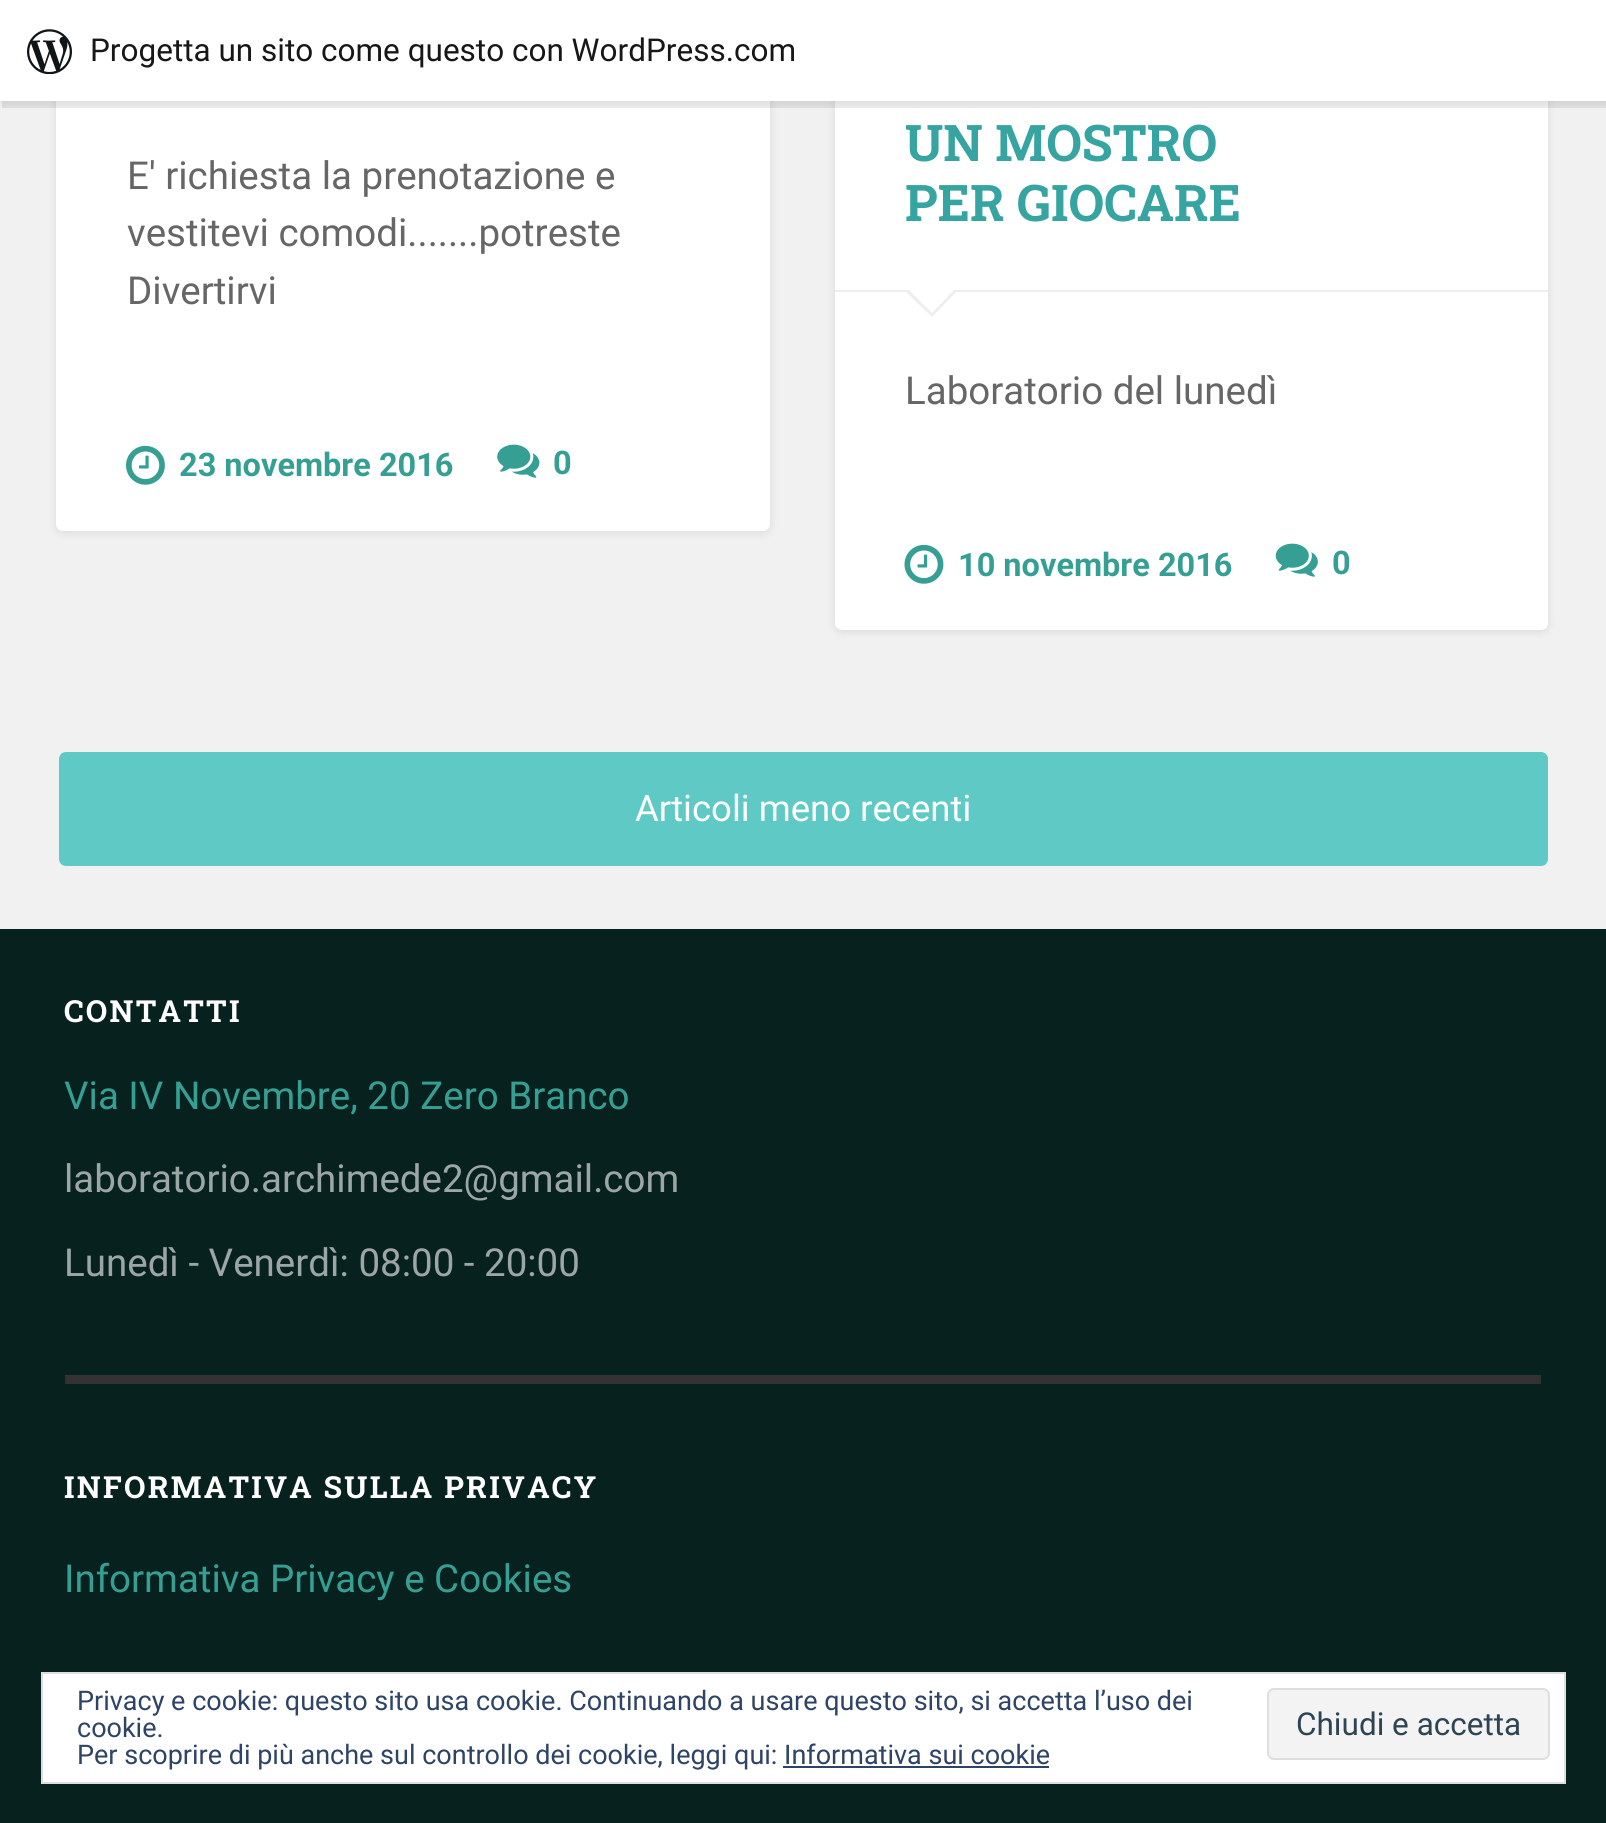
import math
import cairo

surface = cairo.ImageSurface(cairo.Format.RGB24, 1606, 1823)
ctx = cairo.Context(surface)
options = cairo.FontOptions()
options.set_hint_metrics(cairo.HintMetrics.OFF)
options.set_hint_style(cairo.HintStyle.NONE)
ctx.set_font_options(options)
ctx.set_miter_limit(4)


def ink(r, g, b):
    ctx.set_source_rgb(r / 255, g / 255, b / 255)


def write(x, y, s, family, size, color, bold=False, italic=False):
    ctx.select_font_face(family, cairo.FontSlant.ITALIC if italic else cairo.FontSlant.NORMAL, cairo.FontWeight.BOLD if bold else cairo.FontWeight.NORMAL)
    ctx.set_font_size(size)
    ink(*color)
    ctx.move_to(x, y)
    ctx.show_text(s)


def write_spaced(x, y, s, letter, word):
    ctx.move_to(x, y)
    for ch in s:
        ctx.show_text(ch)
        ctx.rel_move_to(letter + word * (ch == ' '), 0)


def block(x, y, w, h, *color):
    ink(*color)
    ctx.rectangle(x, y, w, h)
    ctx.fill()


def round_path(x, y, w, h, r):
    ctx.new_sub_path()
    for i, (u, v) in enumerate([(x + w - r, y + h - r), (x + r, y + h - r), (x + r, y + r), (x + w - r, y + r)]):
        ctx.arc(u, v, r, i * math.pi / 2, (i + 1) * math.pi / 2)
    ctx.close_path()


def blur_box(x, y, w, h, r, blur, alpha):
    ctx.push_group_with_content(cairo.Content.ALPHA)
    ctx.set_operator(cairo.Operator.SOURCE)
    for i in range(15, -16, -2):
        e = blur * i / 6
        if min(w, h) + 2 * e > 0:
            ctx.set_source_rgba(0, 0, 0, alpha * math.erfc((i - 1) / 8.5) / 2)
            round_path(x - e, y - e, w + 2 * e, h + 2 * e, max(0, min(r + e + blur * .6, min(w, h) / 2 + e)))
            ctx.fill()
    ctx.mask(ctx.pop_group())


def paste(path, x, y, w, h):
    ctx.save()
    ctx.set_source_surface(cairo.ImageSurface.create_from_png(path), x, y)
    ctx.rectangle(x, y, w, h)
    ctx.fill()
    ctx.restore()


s1 = dict(family="Roboto", size=31.5, color=(23, 23, 23))
s2 = dict(family="Roboto", size=38.5, color=(102, 102, 102))
s3 = dict(family="Roboto", size=32.5, color=(54, 159, 147), bold=True)
s4 = dict(family="Roboto Slab", size=50.5, color=(54, 164, 160), bold=True)
s5 = dict(family="Roboto", size=36.5, color=(255, 255, 255))
s6 = dict(family="Roboto", size=38.5, color=(54, 159, 147))
s7 = dict(family="Roboto", size=38.5, color=(156, 166, 165))
s8 = dict(family="Roboto", size=27, color=(46, 68, 103))
s9 = dict(family="Roboto", size=31.5, color=(46, 68, 83))

ink(241, 241, 242)
ctx.paint()
ink(0, 0, 0)
blur_box(56, -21, 714, 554, 7, 4.5, 0.1)
ink(255, 255, 255)
round_path(56, -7, 714, 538, 7)
ctx.fill()
ink(0, 0, 0)
blur_box(835, 56, 713, 576, 7, 4.5, 0.1)
ink(255, 255, 255)
round_path(835, 54, 713, 576, 7)
ctx.fill()
ink(0, 0, 0)
blur_box(0, 2, 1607, 102, 0, 2, 0.05)
ctx.set_source_rgba(0, 0, 0, 0.08)
ctx.new_path()
ctx.move_to(2, 101)
ctx.line_to(2, 108)
ctx.line_to(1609, 108)
ctx.line_to(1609, 7)
ctx.line_to(1606, 7)
ctx.line_to(1606, 101)
ctx.close_path()
ctx.fill()
block(0, 0, 1606, 101, 255, 255, 255)
paste("pic1.png", 27, 29, 45, 45)
write(90, 61, "Progetta un sito come questo con WordPress.com", **s1)
write(127, 189, "E' richiesta la prenotazione e", **s2)
write(127, 246, "vestitevi comodi.......potreste", **s2)
write(127, 304, "Divertirvi", **s2)
paste("pic2.png", 126, 445, 39, 40)
write(179, 476, "23 novembre 2016", **s3)
paste("pic3.png", 497, 444, 43, 34)
write(553, 474, "0", **s3)
block(835, 290, 713, 2, 238, 238, 238)
write(905, 161, "UN MOSTRO", **s4)
write(905, 221, "PER GIOCARE", **s4)
ink(238, 238, 238)
ctx.new_path()
ctx.move_to(904, 290)
ctx.line_to(958, 290)
ctx.line_to(932, 317)
ctx.close_path()
ctx.fill()
ink(255, 255, 255)
ctx.new_path()
ctx.move_to(907, 288)
ctx.line_to(956, 288)
ctx.line_to(932, 313)
ctx.close_path()
ctx.fill()
write(905, 404, "Laboratorio del lunedì", **s2)
paste("pic4.png", 904, 544, 40, 40)
write(958, 576, "10 novembre 2016", **s3)
paste("pic5.png", 1275, 543, 43, 34)
write(1332, 574, "0", **s3)
ink(94, 201, 197)
round_path(59, 752, 1489, 114, 7)
ctx.fill()
write(635, 821, "Articoli meno recenti", **s5)
block(0, 929, 1606, 894, 7, 33, 31)
ctx.select_font_face("Roboto Slab", cairo.FontSlant.NORMAL, cairo.FontWeight.BOLD)
ctx.set_font_size(30.4)
ink(255, 255, 255)
write_spaced(64, 1022, "CONTATTI", 2.25, 0)
write(64, 1109, "Via IV Novembre, 20 Zero Branco", **s6)
write(64, 1192, "laboratorio.archimede2@gmail.com", **s7)
write(64, 1276, "Lunedì - Venerdì: 08:00 - 20:00", **s7)
block(65, 1375, 1476, 9, 51, 51, 51)
ctx.select_font_face("Roboto Slab", cairo.FontSlant.NORMAL, cairo.FontWeight.BOLD)
ctx.set_font_size(30.4)
ink(255, 255, 255)
write_spaced(64, 1498, "INFORMATIVA SULLA PRIVACY", 2.25, 0)
write(64, 1592, "Informativa Privacy e Cookies", **s6)
ink(255, 255, 255)
ctx.rectangle(42, 1673, 1523, 110)
ctx.fill_preserve()
ink(222, 222, 222)
ctx.stroke()
write(77, 1710, "Privacy e cookie: questo sito usa cookie. Continuando a usare questo sito, si accetta l’uso dei", **s8)
write(77, 1737, "cookie.", **s8)
ink(243, 243, 243)
round_path(1268, 1689, 281, 70, 6)
ctx.fill_preserve()
ink(222, 222, 222)
ctx.stroke()
write(1296, 1735, "Chiudi e accetta", **s9)
write(77, 1764, "Per scoprire di più anche sul controllo dei cookie, leggi qui: Informativa sui cookie", **s8)
block(783, 1766, 266, 2, 46, 68, 103)
surface.write_to_png("screenshot.png")
